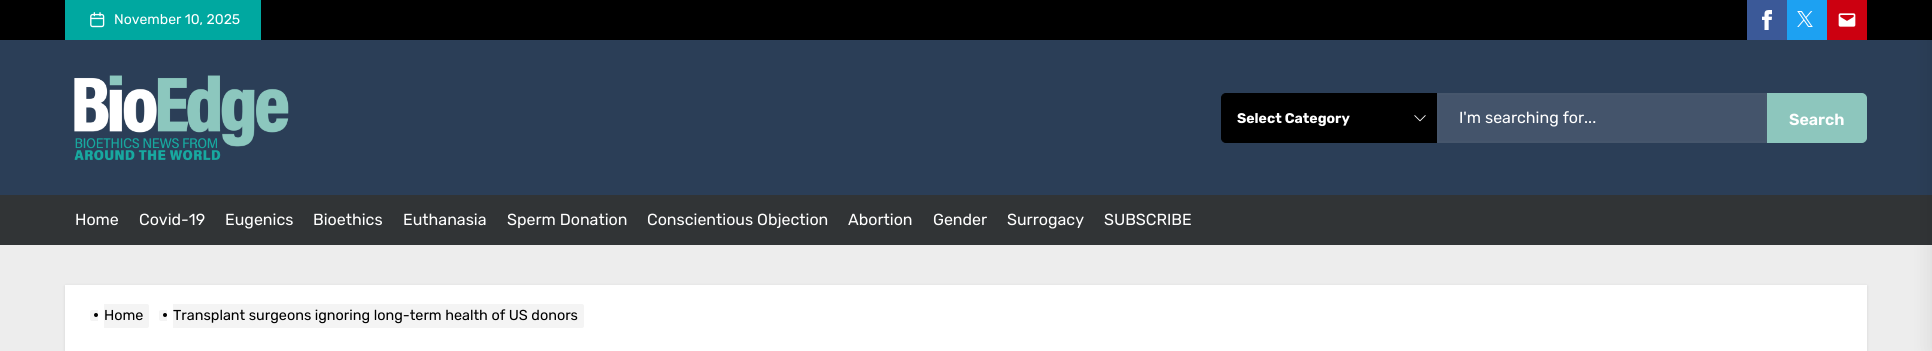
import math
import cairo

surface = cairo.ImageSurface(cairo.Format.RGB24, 1932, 351)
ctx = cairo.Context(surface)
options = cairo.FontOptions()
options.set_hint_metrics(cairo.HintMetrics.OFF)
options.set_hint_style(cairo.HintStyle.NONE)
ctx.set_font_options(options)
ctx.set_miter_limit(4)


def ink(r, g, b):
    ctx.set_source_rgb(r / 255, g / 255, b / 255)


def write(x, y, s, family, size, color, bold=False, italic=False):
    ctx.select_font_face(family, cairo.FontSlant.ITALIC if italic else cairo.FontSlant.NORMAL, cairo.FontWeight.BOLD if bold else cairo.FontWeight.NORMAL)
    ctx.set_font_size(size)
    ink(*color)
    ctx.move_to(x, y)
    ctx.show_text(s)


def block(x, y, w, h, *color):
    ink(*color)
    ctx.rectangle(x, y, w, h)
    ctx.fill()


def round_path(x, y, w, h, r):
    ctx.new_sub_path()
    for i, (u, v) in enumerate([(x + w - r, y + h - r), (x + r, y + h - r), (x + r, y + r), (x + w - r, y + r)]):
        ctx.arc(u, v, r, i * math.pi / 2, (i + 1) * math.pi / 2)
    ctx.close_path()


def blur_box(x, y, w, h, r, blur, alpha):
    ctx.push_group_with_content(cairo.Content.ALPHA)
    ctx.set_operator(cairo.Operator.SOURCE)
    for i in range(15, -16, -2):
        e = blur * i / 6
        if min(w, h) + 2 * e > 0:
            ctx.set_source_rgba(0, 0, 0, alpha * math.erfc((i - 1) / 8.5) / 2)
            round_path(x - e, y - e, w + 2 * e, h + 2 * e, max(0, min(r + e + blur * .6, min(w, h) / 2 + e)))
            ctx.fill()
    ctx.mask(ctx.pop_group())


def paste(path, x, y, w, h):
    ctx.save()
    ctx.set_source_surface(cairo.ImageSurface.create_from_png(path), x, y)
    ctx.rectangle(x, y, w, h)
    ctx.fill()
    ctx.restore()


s1 = dict(family="Rubik", size=14, color=(255, 255, 255))
s2 = dict(family="Rubik", size=14, color=(255, 255, 255), bold=True)
s3 = dict(family="Rubik", size=16, color=(255, 255, 255))
s4 = dict(family="Rubik SemiBold", size=16, color=(255, 255, 255))
s5 = dict(family="Rubik", size=14.4, color=(0, 0, 0))

ink(237, 237, 237)
ctx.paint()
block(0, 0, 1932, 40, 0, 0, 0)
block(65, 0, 196, 40, 0, 168, 160)
paste("pic1.png", 90, 12, 15, 16)
write(114, 24, "November 10, 2025", **s1)
block(1747, 0, 40, 40, 59, 89, 152)
paste("pic2.png", 1762, 10, 10, 20)
block(1787, 0, 40, 40, 29, 161, 242)
paste("pic3.png", 1797, 11, 16, 16)
block(1827, 0, 40, 40, 204, 0, 16)
paste("pic4.png", 1838, 13, 18, 14)
block(0, 40, 1932, 155, 43, 62, 87)
block(0, 195, 1932, 50, 49, 52, 54)
ink(0, 0, 0)
blur_box(1932, 0, 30, 351, 0, 10, 0.1)
paste("pic5.png", 74, 75, 215, 86)
ink(0, 0, 0)
ctx.new_path()
ctx.move_to(1226, 93.5)
ctx.line_to(1436.5, 93.5)
ctx.line_to(1436.5, 142.5)
ctx.line_to(1226, 142.5)
ctx.curve_to(1223.5, 142.5, 1221.5, 140.5, 1221.5, 138)
ctx.line_to(1221.5, 98)
ctx.curve_to(1221.5, 95.5, 1223.5, 93.5, 1226, 93.5)
ctx.close_path()
ctx.fill_preserve()
ctx.set_line_width(1)
ctx.stroke()
write(1237, 123, "Select Category", **s2)
paste("pic6.png", 1414, 115, 12, 7)
ink(68, 84, 107)
ctx.rectangle(1438, 94, 328, 48)
ctx.fill_preserve()
ink(70, 86, 108)
ctx.set_line_width(2)
ctx.stroke()
write(1459, 123, "I'm searching for...", **s3)
ink(141, 198, 189)
ctx.new_path()
ctx.move_to(1768, 94)
ctx.line_to(1862, 94)
ctx.curve_to(1864, 94, 1866, 96, 1866, 98)
ctx.line_to(1866, 138)
ctx.curve_to(1866, 140, 1864, 142, 1862, 142)
ctx.line_to(1768, 142)
ctx.close_path()
ctx.fill_preserve()
ctx.stroke()
write(1789, 125, "Search", **s4)
write(75, 225, "Home", **s3)
write(139, 225, "Covid-19", **s3)
write(225, 225, "Eugenics", **s3)
write(313, 225, "Bioethics", **s3)
write(403, 225, "Euthanasia", **s3)
write(507, 225, "Sperm Donation", **s3)
write(647, 225, "Conscientious Objection", **s3)
write(848, 225, "Abortion", **s3)
write(933, 225, "Gender", **s3)
write(1007, 225, "Surrogacy", **s3)
write(1104, 225, "SUBSCRIBE", **s3)
ink(0, 0, 0)
blur_box(65, 286, 1802, 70, 0, 1.5, 0.1)
block(65, 285, 1802, 66, 255, 255, 255)
ink(244, 244, 244)
ctx.new_path()
ctx.move_to(92, 310)
ctx.line_to(98, 310)
ctx.line_to(98, 321)
ctx.line_to(92, 321)
ctx.curve_to(91, 321, 90, 320, 90, 319)
ctx.line_to(90, 312)
ctx.curve_to(90, 311, 91, 310, 92, 310)
ctx.close_path()
ctx.fill()
ctx.new_path()
ctx.move_to(104, 304)
ctx.line_to(147, 304)
ctx.curve_to(148, 304, 149, 305, 149, 306)
ctx.line_to(149, 326)
ctx.curve_to(149, 327, 148, 328, 147, 328)
ctx.line_to(104, 328)
ctx.close_path()
ctx.fill()
ink(0, 0, 0)
ctx.arc(96, 315, 2, 0, 2 * math.pi)
ctx.fill()
write(104, 320, "Home", **s5)
ink(244, 244, 244)
ctx.new_path()
ctx.move_to(161, 310)
ctx.line_to(167, 310)
ctx.line_to(167, 321)
ctx.line_to(161, 321)
ctx.curve_to(160, 321, 159, 320, 159, 319)
ctx.line_to(159, 312)
ctx.curve_to(159, 311, 160, 310, 161, 310)
ctx.close_path()
ctx.fill()
ctx.new_path()
ctx.move_to(173, 304)
ctx.line_to(582, 304)
ctx.curve_to(583, 304, 584, 305, 584, 306)
ctx.line_to(584, 326)
ctx.curve_to(584, 327, 583, 328, 582, 328)
ctx.line_to(173, 328)
ctx.close_path()
ctx.fill()
ink(0, 0, 0)
ctx.arc(165, 315, 2, 0, 2 * math.pi)
ctx.fill()
write(173, 320, "Transplant surgeons ignoring long-term health of US donors", **s5)
surface.write_to_png("screenshot.png")
